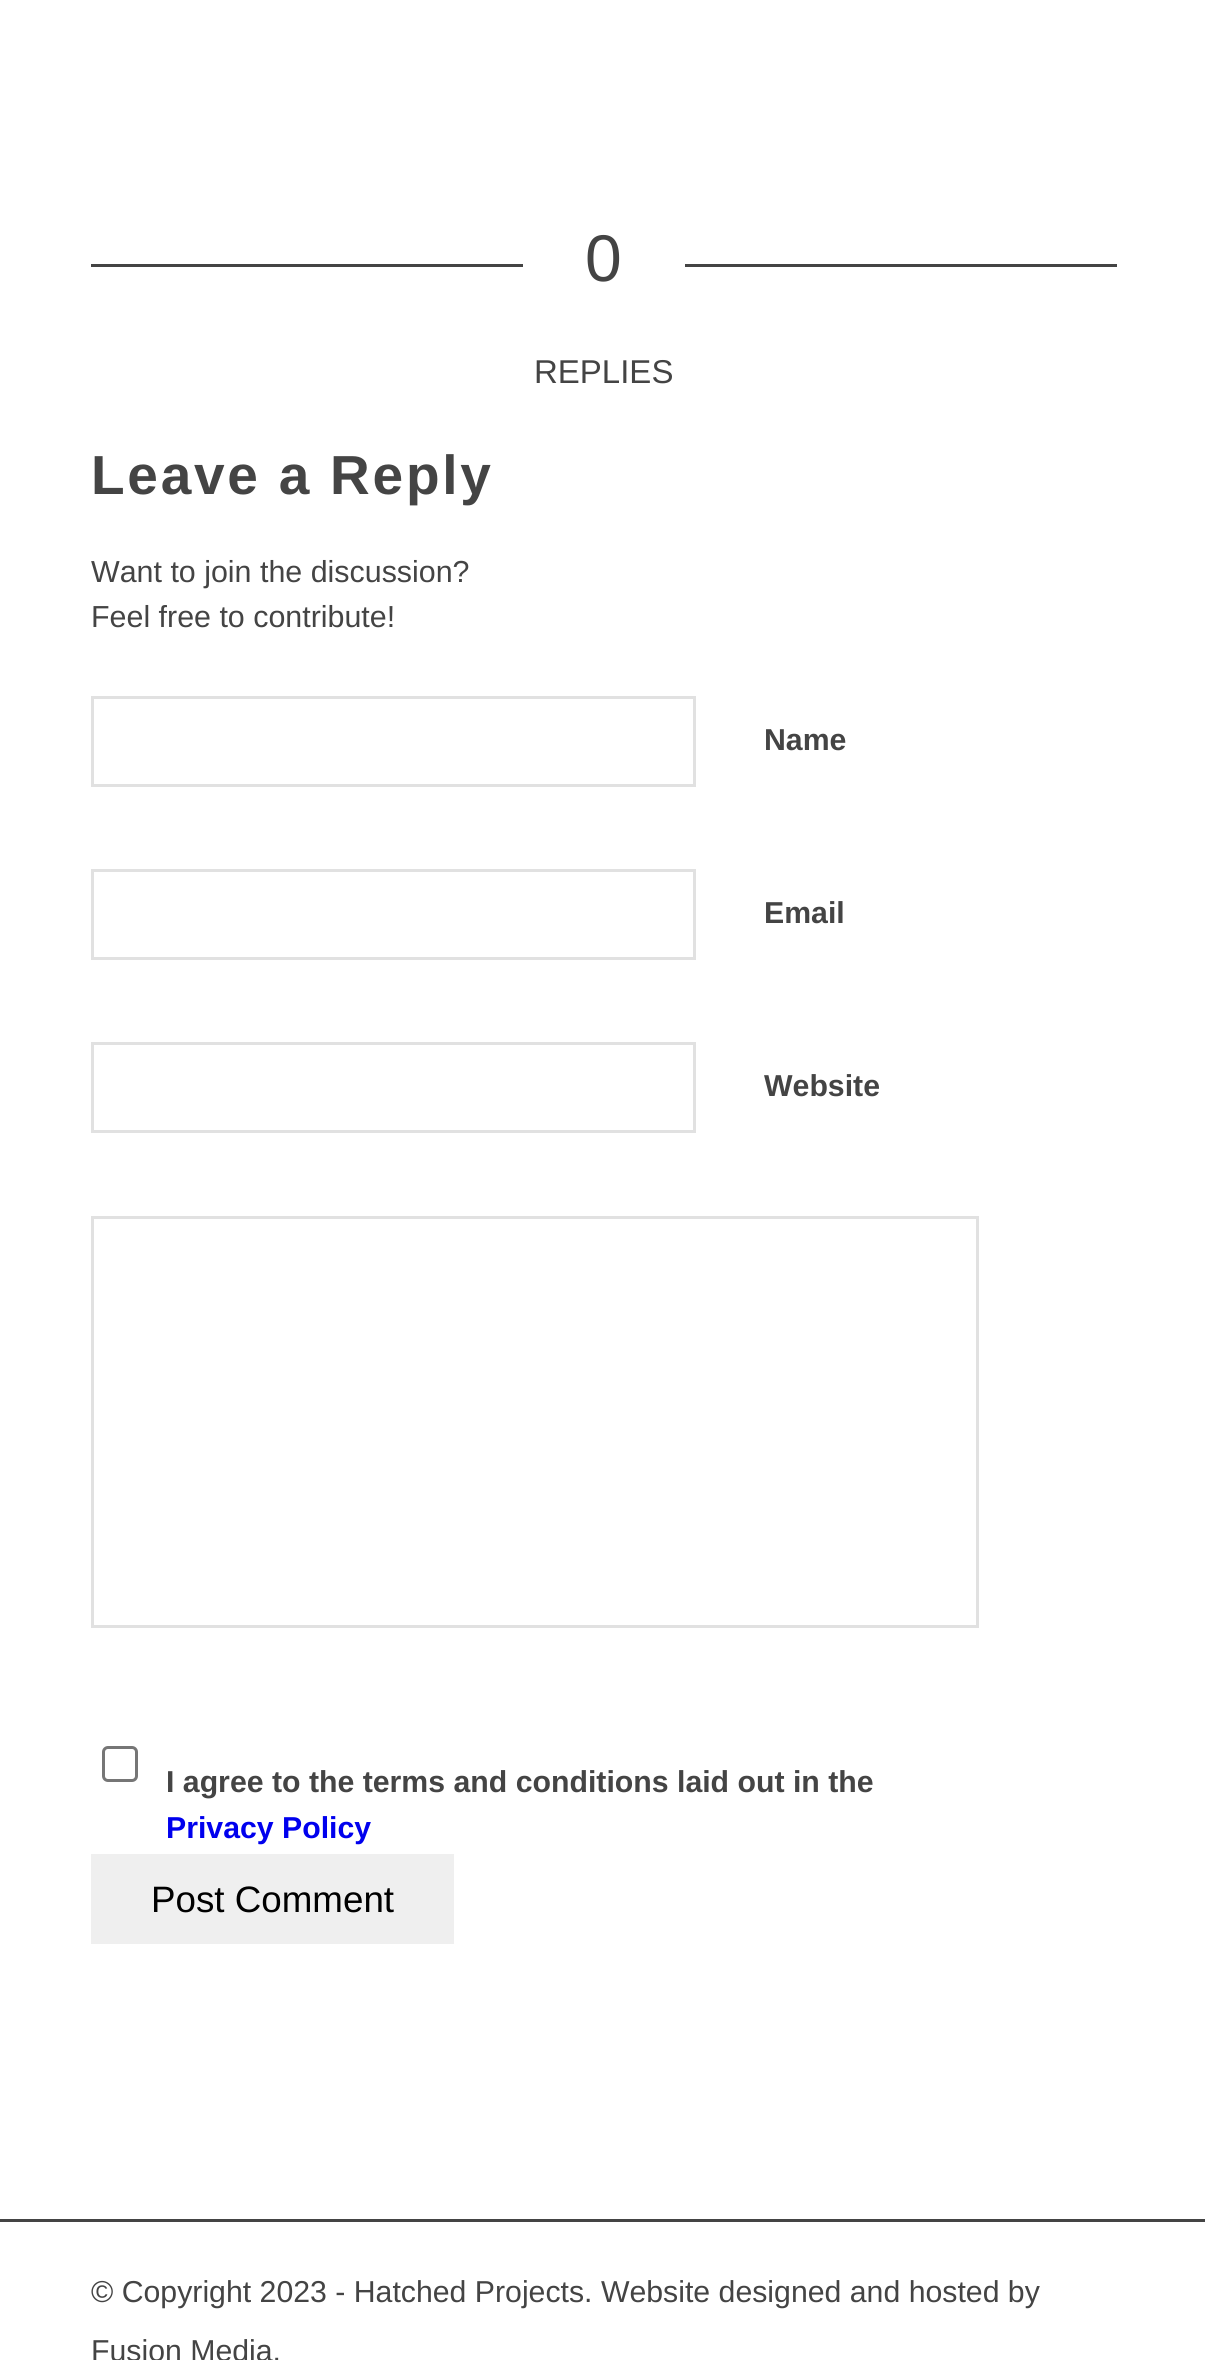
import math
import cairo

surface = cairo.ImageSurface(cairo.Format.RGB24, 1205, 2360)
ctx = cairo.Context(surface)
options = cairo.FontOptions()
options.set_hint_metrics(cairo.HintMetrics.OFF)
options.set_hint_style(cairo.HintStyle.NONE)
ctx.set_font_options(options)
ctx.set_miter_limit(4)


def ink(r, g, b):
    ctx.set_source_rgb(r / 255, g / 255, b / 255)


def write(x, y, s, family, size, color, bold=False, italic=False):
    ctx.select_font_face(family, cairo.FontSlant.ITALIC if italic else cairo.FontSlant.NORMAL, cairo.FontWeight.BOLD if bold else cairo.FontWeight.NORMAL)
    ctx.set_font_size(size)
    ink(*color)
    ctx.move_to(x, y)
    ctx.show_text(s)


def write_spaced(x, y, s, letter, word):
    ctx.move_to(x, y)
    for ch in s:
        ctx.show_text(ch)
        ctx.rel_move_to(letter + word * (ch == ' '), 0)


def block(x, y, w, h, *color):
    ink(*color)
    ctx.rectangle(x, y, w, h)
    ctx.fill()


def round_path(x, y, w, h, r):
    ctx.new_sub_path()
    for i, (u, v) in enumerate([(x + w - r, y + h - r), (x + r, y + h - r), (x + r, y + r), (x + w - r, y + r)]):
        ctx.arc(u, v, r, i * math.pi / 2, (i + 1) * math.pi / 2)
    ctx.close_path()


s1 = dict(family="Liberation Sans", size=66, color=(68, 68, 68))
s2 = dict(family="Liberation Sans", size=33, color=(68, 68, 68))
s3 = dict(family="Liberation Sans", size=30.4, color=(68, 68, 68))
s4 = dict(family="Liberation Sans", size=30.25, color=(68, 68, 68), bold=True)
s5 = dict(family="Liberation Sans", size=30.25, color=(0, 0, 238), bold=True)
s6 = dict(family="Liberation Sans", size=36.75, color=(0, 0, 0))
s7 = dict(family="Liberation Sans", size=30.25, color=(68, 68, 68))

ink(255, 255, 255)
ctx.paint()
block(91, 264, 432, 3, 68, 68, 68)
write(585, 281, "0", **s1)
block(685, 264, 432, 3, 68, 68, 68)
write(534, 383, "REPLIES", **s2)
ctx.select_font_face("Liberation Sans", cairo.FontSlant.NORMAL, cairo.FontWeight.BOLD)
ctx.set_font_size(55)
write_spaced(91, 494, "Leave a Reply", 2.75, 0)
write(91, 582, "Want to join the discussion?", **s3)
write(91, 627, "Feel free to contribute!", **s3)
ctx.rectangle(92.5, 697.5, 602, 88)
ink(225, 225, 225)
ctx.set_line_width(3)
ctx.stroke()
write(764, 750, "Name", **s4)
ctx.rectangle(92.5, 870.5, 602, 88)
ink(225, 225, 225)
ctx.stroke()
write(764, 923, "Email", **s4)
ctx.rectangle(92.5, 1043.5, 602, 88)
ink(225, 225, 225)
ctx.stroke()
write(764, 1096, "Website", **s4)
ctx.rectangle(92.5, 1217.5, 885, 409)
ink(225, 225, 225)
ctx.stroke()
round_path(103.5, 1747.5, 33, 33, 4.5)
ink(118, 118, 118)
ctx.stroke()
write(166, 1792, "I agree to the terms and conditions laid out in the", **s4)
write(166, 1838, "Privacy Policy", **s5)
block(91, 1854, 363, 90, 239, 239, 239)
write(151, 1912, "Post Comment", **s6)
block(0, 2219, 1205, 3, 68, 68, 68)
write(91, 2302, "© Copyright 2023 - Hatched Projects. Website designed and hosted by", **s7)
write(91, 2361, "Fusion Media.", **s7)
surface.write_to_png("screenshot.png")
